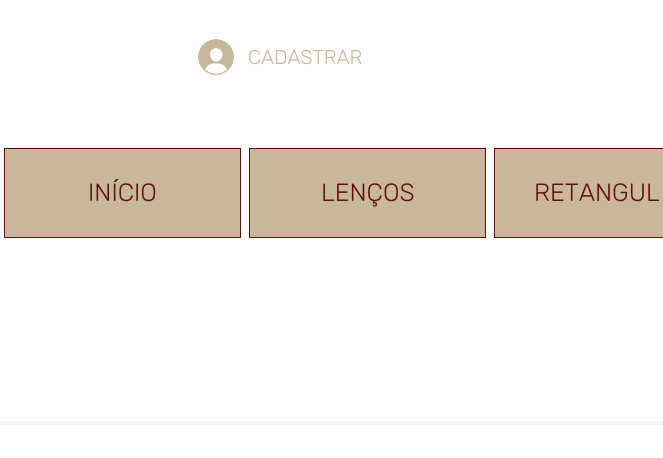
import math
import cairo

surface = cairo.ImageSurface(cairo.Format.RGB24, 663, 458)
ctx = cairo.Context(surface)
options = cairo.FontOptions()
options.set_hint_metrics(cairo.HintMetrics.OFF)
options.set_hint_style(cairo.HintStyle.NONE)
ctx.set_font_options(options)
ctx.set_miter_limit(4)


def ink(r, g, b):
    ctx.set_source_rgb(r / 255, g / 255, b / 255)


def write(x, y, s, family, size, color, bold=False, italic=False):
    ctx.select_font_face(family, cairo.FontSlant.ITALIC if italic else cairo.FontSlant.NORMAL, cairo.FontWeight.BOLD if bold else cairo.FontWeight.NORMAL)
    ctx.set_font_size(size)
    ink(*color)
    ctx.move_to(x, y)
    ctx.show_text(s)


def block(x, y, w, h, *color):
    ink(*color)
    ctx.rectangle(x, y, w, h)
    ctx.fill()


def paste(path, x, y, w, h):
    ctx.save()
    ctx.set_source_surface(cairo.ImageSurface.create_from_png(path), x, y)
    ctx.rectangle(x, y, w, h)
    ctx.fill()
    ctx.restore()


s1 = dict(family="Rubik Light", size=20, color=(200, 184, 155))
s2 = dict(family="Rubik Light", size=25, color=(98, 13, 9))

ink(255, 255, 255)
ctx.paint()
paste("pic1.png", 198, 39, 36, 36)
write(248, 64, "CADASTRAR", **s1)
ctx.rectangle(4.5, 148.5, 236, 89)
ctx.fill_preserve()
ink(98, 13, 9)
ctx.set_line_width(1)
ctx.stroke()
write(88, 201, "INÍCIO", **s2)
ink(200, 184, 155)
ctx.rectangle(249.5, 148.5, 236, 89)
ctx.fill_preserve()
ink(98, 13, 9)
ctx.stroke()
write(321, 201, "LENÇOS", **s2)
ink(200, 184, 155)
ctx.rectangle(494.5, 148.5, 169, 89)
ctx.fill_preserve()
ink(98, 13, 9)
ctx.stroke()
write(534, 201, "RETANGUL", **s2)
block(0, 421, 663, 4, 248, 244, 241)
surface.write_to_png("screenshot.png")
